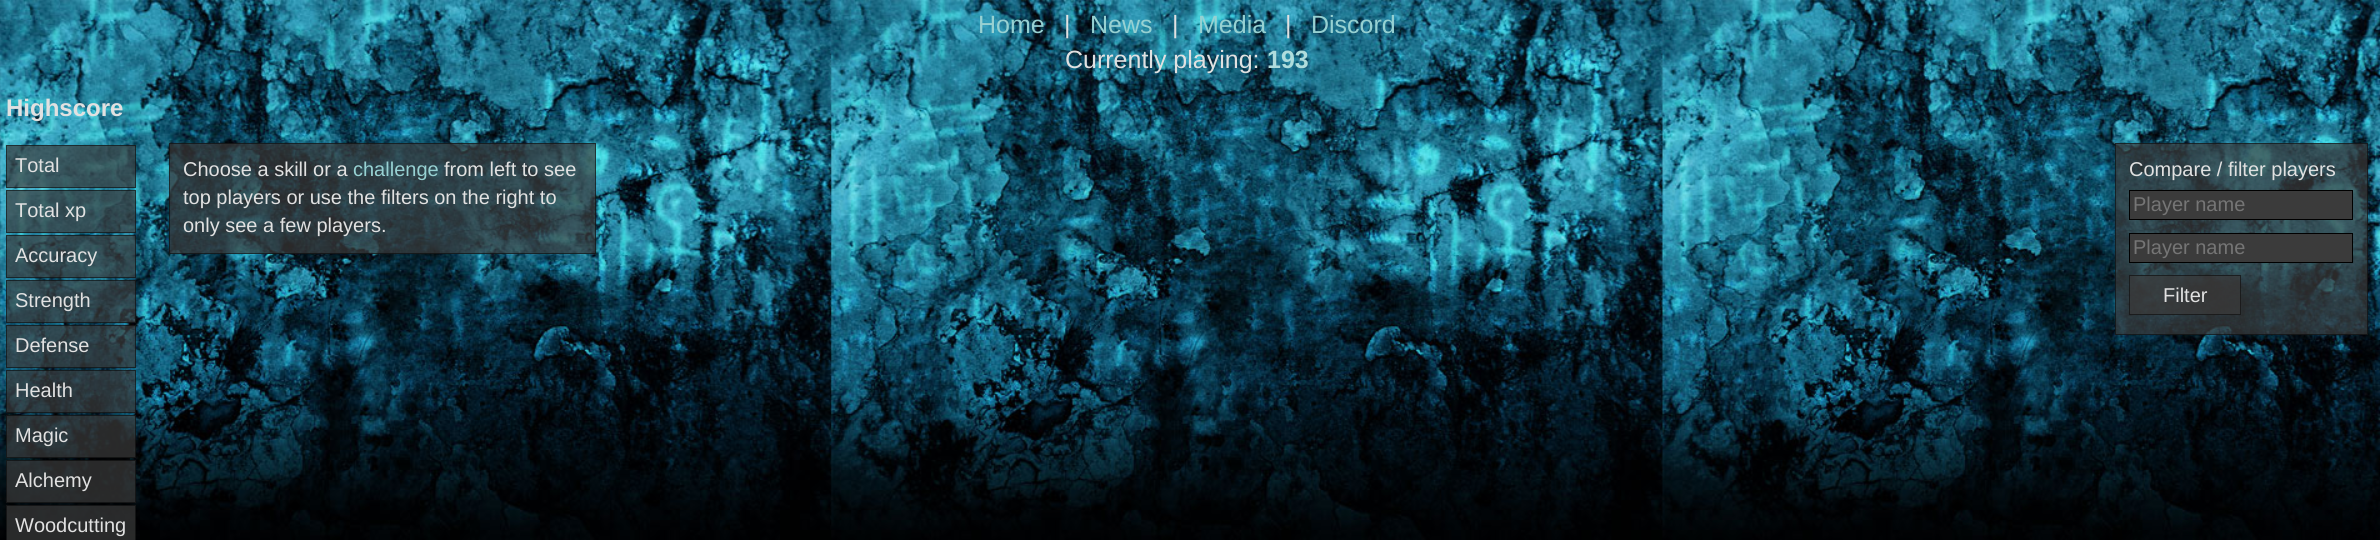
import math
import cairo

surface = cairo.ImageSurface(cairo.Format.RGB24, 2380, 540)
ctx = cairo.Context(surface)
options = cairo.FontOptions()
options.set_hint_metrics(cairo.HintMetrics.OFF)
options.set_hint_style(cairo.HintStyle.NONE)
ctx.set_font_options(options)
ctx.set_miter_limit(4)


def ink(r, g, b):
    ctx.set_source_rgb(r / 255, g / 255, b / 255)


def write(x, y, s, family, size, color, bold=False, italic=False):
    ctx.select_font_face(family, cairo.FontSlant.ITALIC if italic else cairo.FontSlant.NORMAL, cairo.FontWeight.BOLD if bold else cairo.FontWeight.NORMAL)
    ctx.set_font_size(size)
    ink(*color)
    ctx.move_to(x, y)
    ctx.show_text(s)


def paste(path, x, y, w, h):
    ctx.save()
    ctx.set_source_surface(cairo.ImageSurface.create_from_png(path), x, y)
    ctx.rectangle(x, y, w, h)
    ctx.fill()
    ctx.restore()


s1 = dict(family="Liberation Sans", size=25, color=(151, 209, 210))
s2 = dict(family="Liberation Sans", size=25, color=(225, 225, 225))
s3 = dict(family="Liberation Sans", size=25, color=(175, 221, 221), bold=True)
s4 = dict(family="Liberation Sans", size=24, color=(225, 225, 225), bold=True)
s5 = dict(family="Liberation Sans", size=20, color=(225, 225, 225))
s6 = dict(family="Liberation Sans", size=20, color=(151, 209, 210))
s7 = dict(family="Liberation Sans", size=20, color=(117, 117, 117))

ink(255, 255, 255)
ctx.paint()
paste("pic1.png", 0, 0, 2380, 540)
write(978, 33, "Home", **s1)
write(1064, 33, "|", **s2)
write(1090, 33, "News", **s1)
write(1172, 33, "|", **s2)
write(1198, 33, "Media", **s1)
write(1285, 33, "|", **s2)
write(1311, 33, "Discord", **s1)
write(1065, 68, "Currently playing:", **s2)
write(1267, 68, "193", **s3)
write(6, 116, "Highscore", **s4)
ctx.set_source_rgba(0.231, 0.231, 0.231, 0.7)
ctx.rectangle(6, 145, 130, 43)
ctx.fill()
ctx.rectangle(6.5, 145.5, 129, 42)
ctx.set_source_rgba(0, 0, 0, 0.5)
ctx.set_line_width(1)
ctx.stroke()
write(15, 172, "Total", **s5)
ctx.set_source_rgba(0.231, 0.231, 0.231, 0.7)
ctx.rectangle(6, 190, 130, 43)
ctx.fill()
ctx.rectangle(6.5, 190.5, 129, 42)
ctx.set_source_rgba(0, 0, 0, 0.5)
ctx.stroke()
write(15, 217, "Total xp", **s5)
ctx.set_source_rgba(0.231, 0.231, 0.231, 0.7)
ctx.rectangle(6, 235, 130, 43)
ctx.fill()
ctx.rectangle(6.5, 235.5, 129, 42)
ctx.set_source_rgba(0, 0, 0, 0.5)
ctx.stroke()
write(15, 262, "Accuracy", **s5)
ctx.set_source_rgba(0.231, 0.231, 0.231, 0.7)
ctx.rectangle(6, 280, 130, 43)
ctx.fill()
ctx.rectangle(6.5, 280.5, 129, 42)
ctx.set_source_rgba(0, 0, 0, 0.5)
ctx.stroke()
write(15, 307, "Strength", **s5)
ctx.set_source_rgba(0.231, 0.231, 0.231, 0.7)
ctx.rectangle(6, 325, 130, 43)
ctx.fill()
ctx.rectangle(6.5, 325.5, 129, 42)
ctx.set_source_rgba(0, 0, 0, 0.5)
ctx.stroke()
write(15, 352, "Defense", **s5)
ctx.set_source_rgba(0.231, 0.231, 0.231, 0.7)
ctx.rectangle(6, 370, 130, 43)
ctx.fill()
ctx.rectangle(6.5, 370.5, 129, 42)
ctx.set_source_rgba(0, 0, 0, 0.5)
ctx.stroke()
write(15, 397, "Health", **s5)
ctx.set_source_rgba(0.231, 0.231, 0.231, 0.7)
ctx.rectangle(6, 415, 130, 43)
ctx.fill()
ctx.rectangle(6.5, 415.5, 129, 42)
ctx.set_source_rgba(0, 0, 0, 0.5)
ctx.stroke()
write(15, 442, "Magic", **s5)
ctx.set_source_rgba(0.231, 0.231, 0.231, 0.7)
ctx.rectangle(6, 460, 130, 43)
ctx.fill()
ctx.rectangle(6.5, 460.5, 129, 42)
ctx.set_source_rgba(0, 0, 0, 0.5)
ctx.stroke()
write(15, 487, "Alchemy", **s5)
ctx.set_source_rgba(0.231, 0.231, 0.231, 0.7)
ctx.rectangle(6, 505, 130, 35)
ctx.fill()
ctx.rectangle(6.5, 505.5, 129, 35)
ctx.set_source_rgba(0, 0, 0, 0.5)
ctx.stroke()
write(15, 532, "Woodcutting", **s5)
ctx.set_source_rgba(0.231, 0.231, 0.231, 0.7)
ctx.rectangle(169, 143, 427, 111)
ctx.fill()
ctx.rectangle(169.5, 143.5, 426, 110)
ctx.set_source_rgba(0, 0, 0, 0.5)
ctx.stroke()
write(183, 176, "Choose a skill or a", **s5)
write(353, 176, "challenge", **s6)
write(444, 176, "from left to see", **s5)
write(183, 204, "top players or use the filters on the right to", **s5)
write(183, 232, "only see a few players.", **s5)
ctx.set_source_rgba(0.231, 0.231, 0.231, 0.7)
ctx.rectangle(2115, 143, 253, 192)
ctx.fill()
ctx.rectangle(2115.5, 143.5, 252, 191)
ctx.set_source_rgba(0, 0, 0, 0.5)
ctx.stroke()
write(2129, 176, "Compare / filter players", **s5)
ink(59, 59, 59)
ctx.rectangle(2129.5, 190.5, 223, 29)
ctx.fill_preserve()
ink(0, 0, 0)
ctx.stroke()
write(2133, 211, "Player name", **s7)
ink(59, 59, 59)
ctx.rectangle(2129.5, 233.5, 223, 29)
ctx.fill_preserve()
ink(0, 0, 0)
ctx.stroke()
write(2133, 254, "Player name", **s7)
ctx.set_source_rgba(0.231, 0.231, 0.231, 0.7)
ctx.rectangle(2129, 275, 112, 40)
ctx.fill()
ctx.rectangle(2129.5, 275.5, 111, 39)
ctx.set_source_rgba(0, 0, 0, 0.5)
ctx.stroke()
write(2163, 302, "Filter", **s5)
surface.write_to_png("screenshot.png")
